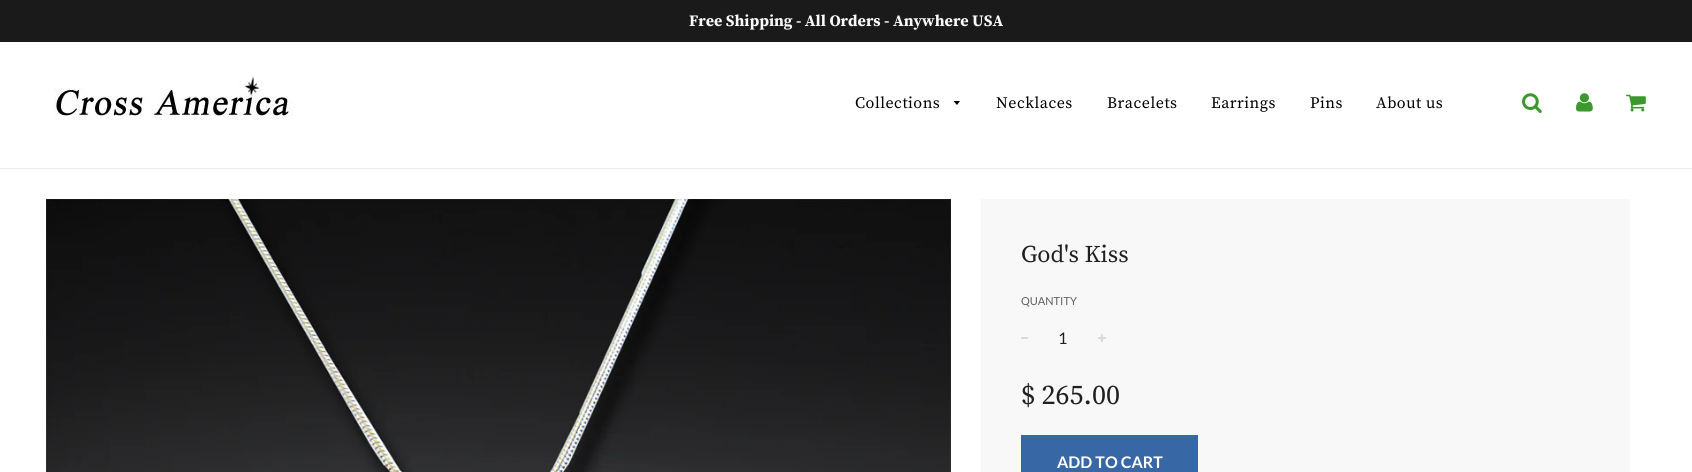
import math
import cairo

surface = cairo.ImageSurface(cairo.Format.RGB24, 1692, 472)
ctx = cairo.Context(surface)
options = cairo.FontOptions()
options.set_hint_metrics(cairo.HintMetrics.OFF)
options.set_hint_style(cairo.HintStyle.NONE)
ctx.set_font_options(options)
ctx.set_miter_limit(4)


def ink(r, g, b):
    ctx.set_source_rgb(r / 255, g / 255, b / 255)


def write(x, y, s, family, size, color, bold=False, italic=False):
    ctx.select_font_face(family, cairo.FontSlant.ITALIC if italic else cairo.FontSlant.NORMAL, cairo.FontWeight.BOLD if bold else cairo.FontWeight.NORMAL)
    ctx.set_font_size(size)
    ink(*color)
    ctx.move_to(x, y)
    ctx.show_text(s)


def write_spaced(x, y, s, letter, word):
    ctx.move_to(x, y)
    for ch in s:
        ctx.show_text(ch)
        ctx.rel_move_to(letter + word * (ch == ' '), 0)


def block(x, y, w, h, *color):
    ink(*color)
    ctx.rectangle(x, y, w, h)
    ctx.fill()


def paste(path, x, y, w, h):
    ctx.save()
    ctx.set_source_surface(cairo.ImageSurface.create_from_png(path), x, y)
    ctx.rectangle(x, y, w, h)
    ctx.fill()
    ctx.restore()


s1 = dict(family="Source Serif Pro", size=16, color=(249, 249, 249), bold=True)
s2 = dict(family="Source Serif Pro", size=24, color=(32, 32, 32))
s3 = dict(family="Lato", size=11, color=(96, 96, 96))
s4 = dict(family="Lato", size=16, color=(32, 32, 32))
s5 = dict(family="Source Serif Pro", size=28, color=(32, 32, 32))
s6 = dict(family="Lato", size=16, color=(255, 255, 255), bold=True)

ink(255, 255, 255)
ctx.paint()
block(0, 0, 1692, 42, 27, 26, 26)
write(689, 26, "Free Shipping - All Orders - Anywhere USA", **s1)
block(0, 168, 1692, 1, 235, 235, 235)
paste("pic1.png", 54, 72, 240, 48)
ctx.select_font_face("Source Serif Pro")
ink(0, 0, 0)
write_spaced(855, 108, "Collections", 0.5, 0)
ctx.new_path()
ctx.move_to(953.5, 101)
ctx.line_to(957, 105)
ctx.line_to(960, 101)
ctx.close_path()
ctx.fill()
write_spaced(996, 108, "Necklaces", 0.5, 0)
write_spaced(1107, 108, "Bracelets", 0.5, 0)
write_spaced(1211, 108, "Earrings", 0.5, 0)
write_spaced(1310, 108, "Pins", 0.5, 0)
write_spaced(1376, 108, "About us", 0.5, 0)
paste("pic2.png", 1522, 93, 20, 20)
paste("pic3.png", 1576, 93, 17, 19)
paste("pic4.png", 1626, 94, 20, 18)
paste("pic5.png", 46, 199, 905, 273)
block(981, 199, 649, 273, 248, 248, 248)
write(1021, 262, "God's Kiss", **s2)
write(1021, 305, "QUANTITY", **s3)
paste("pic6.png", 1021, 337, 7, 2)
write(1058, 344, "1", **s4)
paste("pic7.png", 1098, 334, 8, 8)
write(1021, 404, "$ 265.00", **s5)
block(1021, 435, 177, 37, 56, 103, 165)
write(1057, 468, "ADD TO CART", **s6)
surface.write_to_png("screenshot.png")
